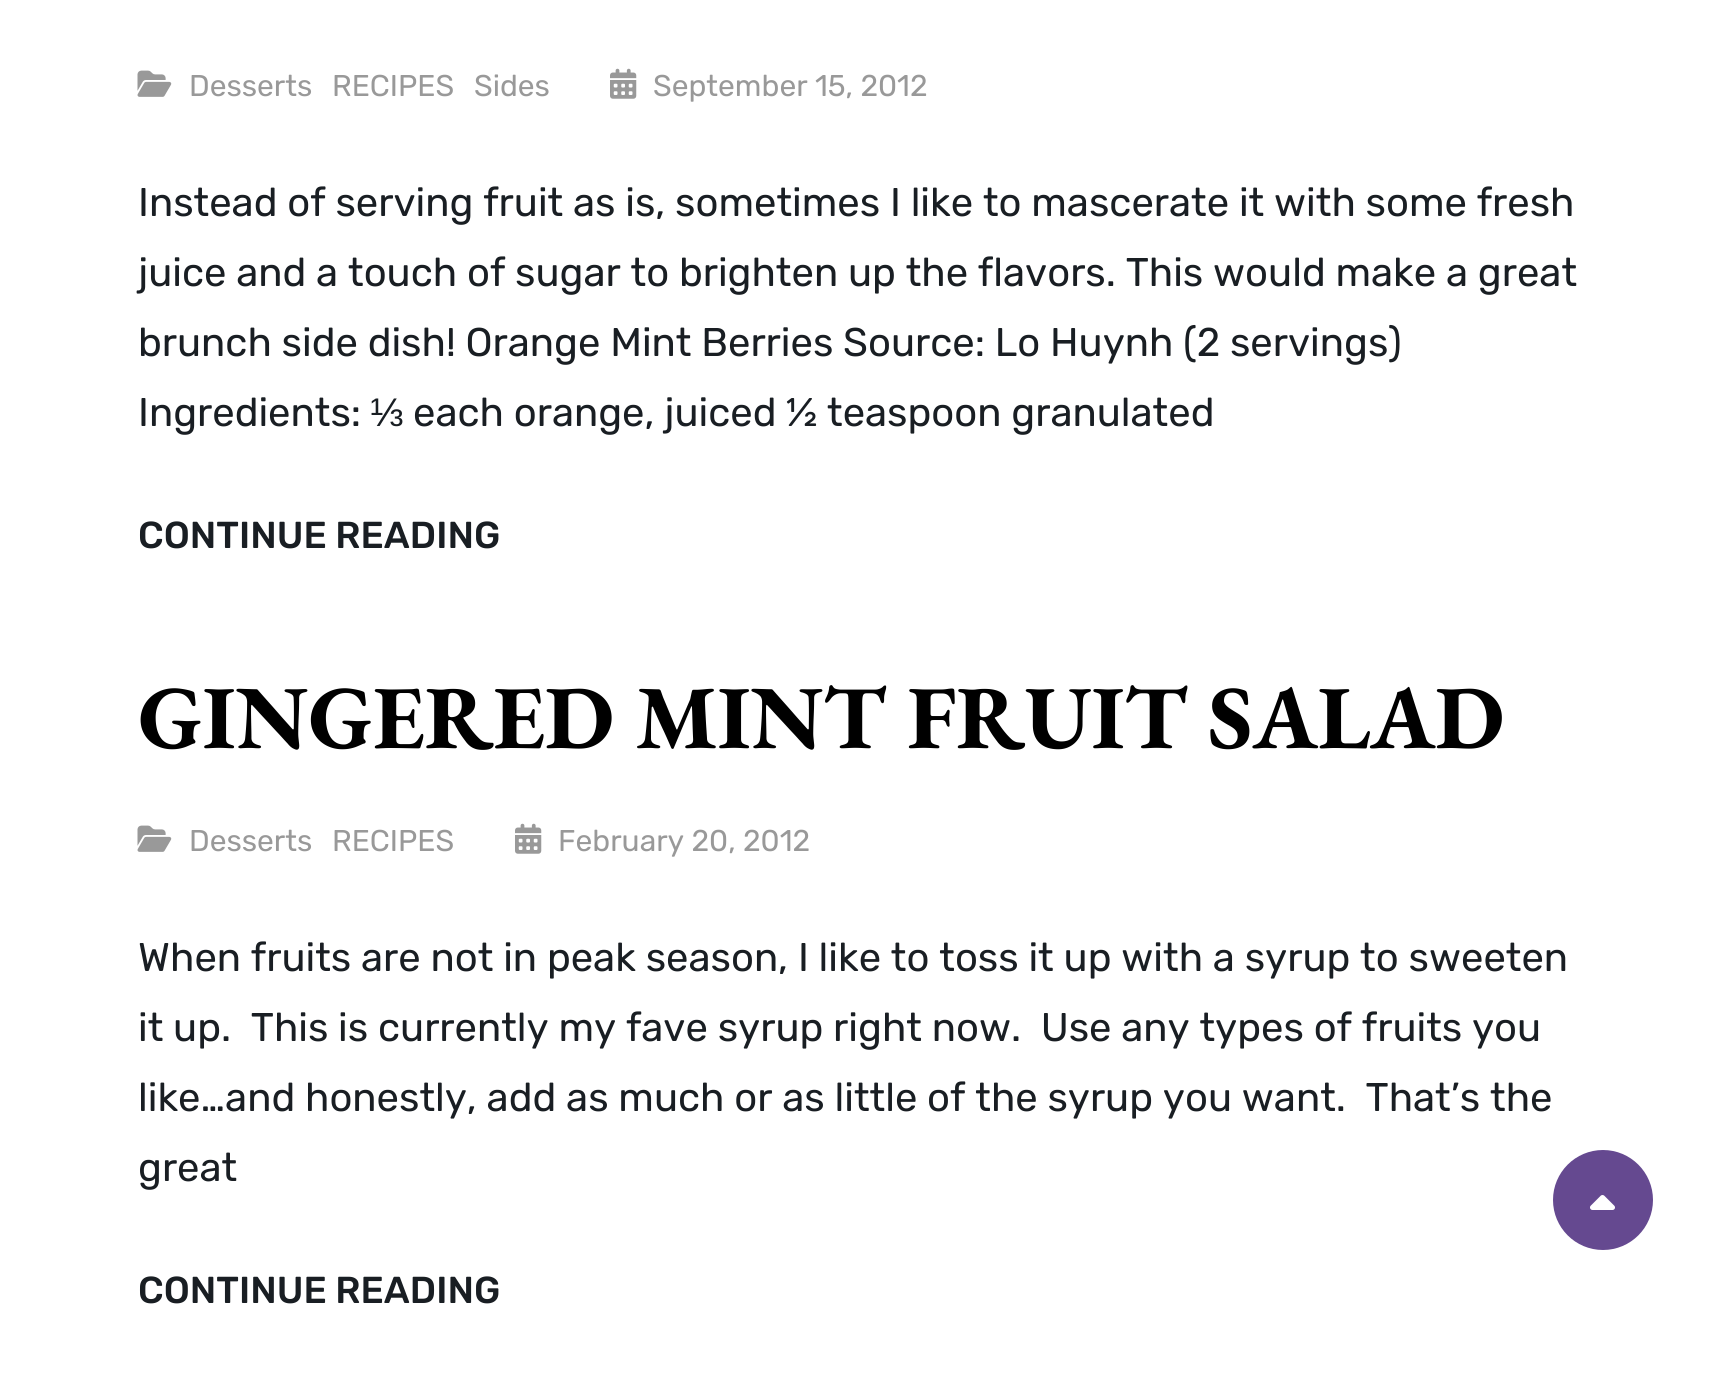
import math
import cairo

surface = cairo.ImageSurface(cairo.Format.RGB24, 1727, 1400)
ctx = cairo.Context(surface)
options = cairo.FontOptions()
options.set_hint_metrics(cairo.HintMetrics.OFF)
options.set_hint_style(cairo.HintStyle.NONE)
ctx.set_font_options(options)
ctx.set_miter_limit(4)


def ink(r, g, b):
    ctx.set_source_rgb(r / 255, g / 255, b / 255)


def write(x, y, s, family, size, color, bold=False, italic=False):
    ctx.select_font_face(family, cairo.FontSlant.ITALIC if italic else cairo.FontSlant.NORMAL, cairo.FontWeight.BOLD if bold else cairo.FontWeight.NORMAL)
    ctx.set_font_size(size)
    ink(*color)
    ctx.move_to(x, y)
    ctx.show_text(s)


def paste(path, x, y, w, h):
    ctx.save()
    ctx.set_source_surface(cairo.ImageSurface.create_from_png(path), x, y)
    ctx.rectangle(x, y, w, h)
    ctx.fill()
    ctx.restore()


s1 = dict(family="Rubik", size=30, color=(153, 153, 153))
s2 = dict(family="Rubik", size=40, color=(25, 30, 35))
s3 = dict(family="Liberation Sans", size=40, color=(25, 30, 35))
s4 = dict(family="Rubik Medium", size=37.5, color=(25, 30, 35))
s5 = dict(family="EB Garamond", size=90, color=(0, 0, 0), bold=True)

ink(255, 255, 255)
ctx.paint()
paste("pic1.png", 137, 70, 35, 27)
write(189, 96, "Desserts", **s1)
write(332, 96, "RECIPES", **s1)
write(474, 96, "Sides", **s1)
paste("pic2.png", 610, 68, 27, 31)
write(653, 96, "September 15, 2012", **s1)
write(138, 216, "Instead of serving fruit as is, sometimes I like to mascerate it with some fresh", **s2)
write(138, 286, "juice and a touch of sugar to brighten up the flavors. This would make a great", **s2)
write(138, 356, "brunch side dish! Orange Mint Berries Source: Lo Huynh (2 servings)", **s2)
write(138, 426, "Ingredients:", **s2)
write(370, 426, "⅓", **s3)
write(413, 426, "each orange, juiced ½ teaspoon granulated", **s2)
write(138, 548, "CONTINUE READING", **s4)
write(138, 748, "GINGERED MINT FRUIT SALAD", **s5)
paste("pic1.png", 137, 825, 35, 27)
write(189, 851, "Desserts", **s1)
write(332, 851, "RECIPES", **s1)
paste("pic2.png", 515, 823, 27, 31)
write(558, 851, "February 20, 2012", **s1)
write(138, 971, "When fruits are not in peak season, I like to toss it up with a syrup to sweeten", **s2)
write(138, 1041, "it up.  This is currently my fave syrup right now.  Use any types of fruits you", **s2)
write(138, 1111, "like…and honestly, add as much or as little of the syrup you want.  That’s the", **s2)
write(138, 1181, "great", **s2)
write(138, 1303, "CONTINUE READING", **s4)
ink(101, 73, 144)
ctx.new_path()
ctx.arc(1603, 1200, 50, 0, 2 * math.pi)
ctx.fill()
paste("pic3.png", 1590, 1195, 25, 15)
surface.write_to_png("screenshot.png")
